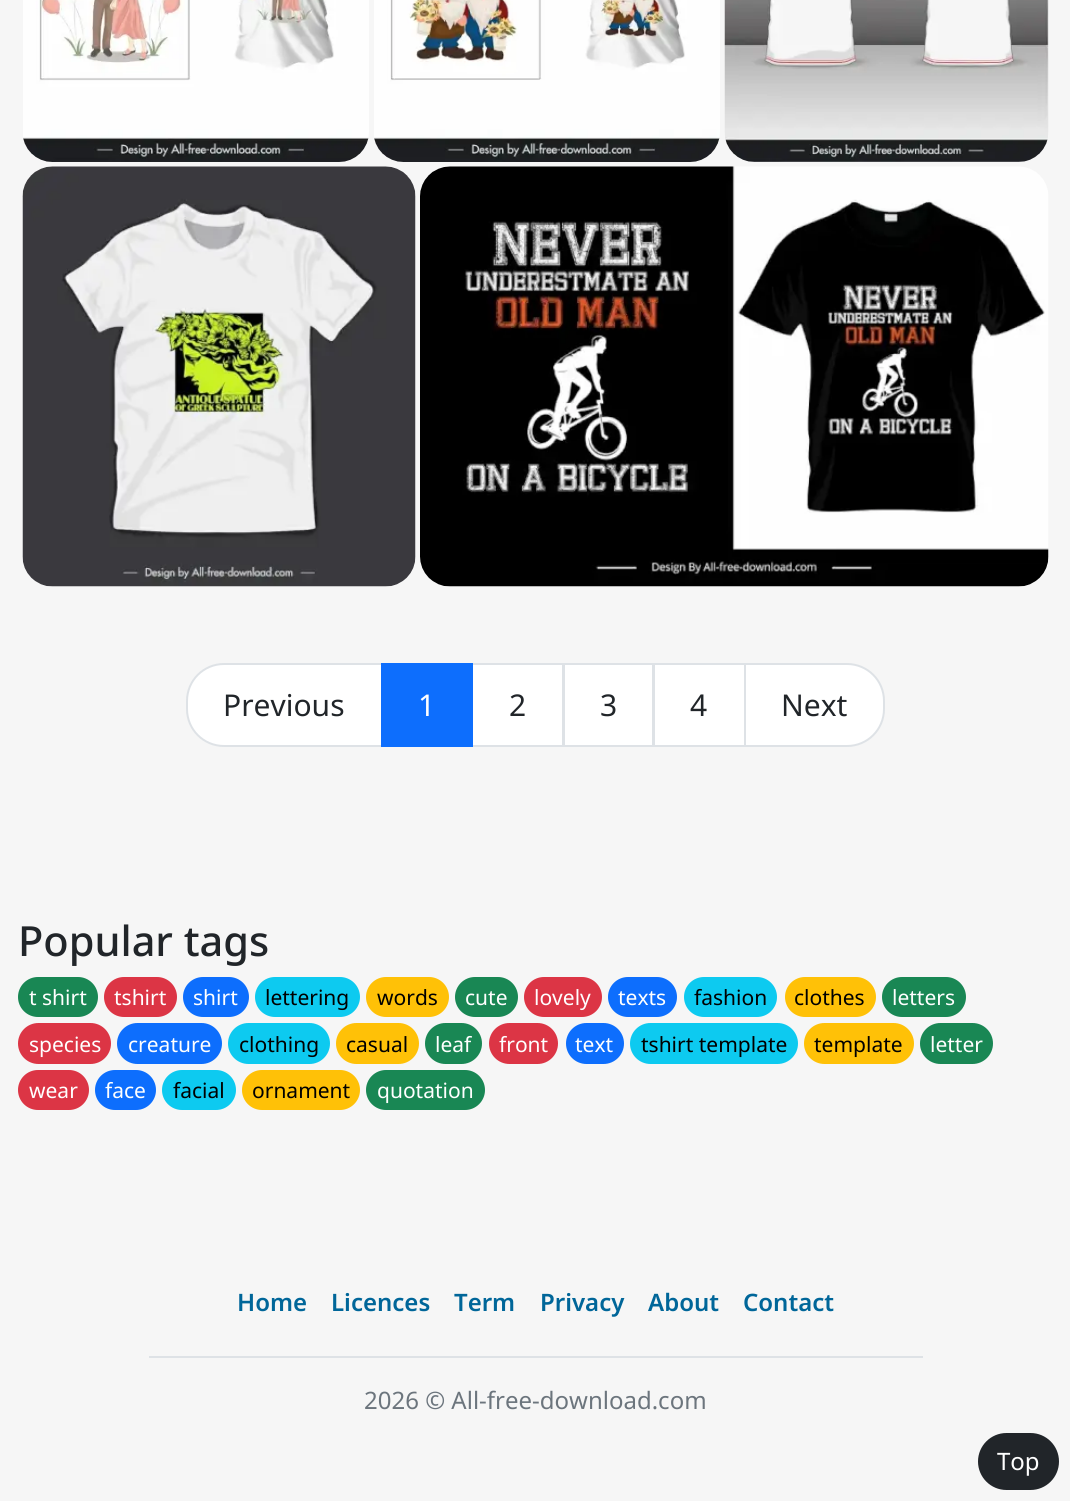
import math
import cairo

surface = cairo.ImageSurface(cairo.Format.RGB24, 1070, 1501)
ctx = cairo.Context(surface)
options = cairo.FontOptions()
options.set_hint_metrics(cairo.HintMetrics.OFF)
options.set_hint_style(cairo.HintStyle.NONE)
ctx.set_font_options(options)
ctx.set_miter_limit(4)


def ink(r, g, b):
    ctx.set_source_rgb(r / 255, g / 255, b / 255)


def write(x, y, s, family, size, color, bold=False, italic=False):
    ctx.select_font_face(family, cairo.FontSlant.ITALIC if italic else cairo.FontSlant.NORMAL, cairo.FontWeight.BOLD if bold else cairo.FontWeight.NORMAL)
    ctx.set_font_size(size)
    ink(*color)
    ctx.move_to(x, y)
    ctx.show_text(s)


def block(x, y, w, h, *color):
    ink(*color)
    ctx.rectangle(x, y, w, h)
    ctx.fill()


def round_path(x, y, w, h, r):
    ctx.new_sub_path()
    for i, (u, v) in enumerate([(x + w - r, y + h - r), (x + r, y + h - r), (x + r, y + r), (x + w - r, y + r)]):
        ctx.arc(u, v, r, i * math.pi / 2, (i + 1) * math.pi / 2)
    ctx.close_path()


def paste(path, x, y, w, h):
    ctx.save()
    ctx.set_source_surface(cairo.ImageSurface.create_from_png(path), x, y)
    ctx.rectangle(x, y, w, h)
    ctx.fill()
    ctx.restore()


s1 = dict(family="Noto Sans", size=30, color=(33, 37, 41))
s2 = dict(family="Noto Sans", size=30, color=(255, 255, 255))
s3 = dict(family="Noto Sans Medium", size=41.5, color=(33, 37, 41))
s4 = dict(family="Noto Sans", size=21, color=(255, 255, 255))
s5 = dict(family="Noto Sans", size=21, color=(0, 0, 0))
s6 = dict(family="Noto Sans SemiBold", size=24, color=(0, 102, 153))
s7 = dict(family="Noto Sans", size=24, color=(108, 117, 125))
s8 = dict(family="Noto Sans", size=24, color=(255, 255, 255))

ink(246, 246, 246)
ctx.paint()
paste("pic1.png", 23, 0, 346, 162)
paste("pic2.png", 374, 0, 346, 162)
paste("pic3.png", 724, 0, 325, 162)
paste("pic4.png", 22, 166, 394, 421)
paste("pic5.png", 420, 166, 629, 421)
ink(255, 255, 255)
ctx.new_path()
ctx.move_to(224, 664)
ctx.line_to(382, 664)
ctx.line_to(382, 746)
ctx.line_to(224, 746)
ctx.curve_to(203.5, 746, 187, 729.5, 187, 709)
ctx.line_to(187, 701)
ctx.curve_to(187, 680.5, 203.5, 664, 224, 664)
ctx.close_path()
ctx.fill_preserve()
ink(222, 226, 230)
ctx.stroke()
write(223, 716, "Previous", **s1)
ink(255, 255, 255)
ctx.rectangle(472, 664, 91, 82)
ctx.fill_preserve()
ink(222, 226, 230)
ctx.stroke()
block(381, 663, 92, 84, 13, 110, 253)
write(418, 716, "1", **s2)
write(509, 716, "2", **s1)
ink(255, 255, 255)
ctx.rectangle(564, 664, 89, 82)
ctx.fill_preserve()
ink(222, 226, 230)
ctx.stroke()
write(600, 716, "3", **s1)
ink(255, 255, 255)
ctx.rectangle(654, 664, 91, 82)
ctx.fill_preserve()
ink(222, 226, 230)
ctx.stroke()
write(690, 716, "4", **s1)
ink(255, 255, 255)
ctx.new_path()
ctx.move_to(745, 664)
ctx.line_to(847, 664)
ctx.curve_to(867.5, 664, 884, 680.5, 884, 701)
ctx.line_to(884, 709)
ctx.curve_to(884, 729.5, 867.5, 746, 847, 746)
ctx.line_to(745, 746)
ctx.close_path()
ctx.fill_preserve()
ink(222, 226, 230)
ctx.stroke()
write(781, 716, "Next", **s1)
write(18, 956, "Popular tags", **s3)
ink(25, 135, 84)
round_path(19, 978, 78, 38, 19)
ctx.fill_preserve()
ctx.stroke()
write(29, 1005, "t shirt", **s4)
ink(220, 53, 69)
round_path(105, 978, 71, 38, 19)
ctx.fill_preserve()
ctx.stroke()
write(114, 1005, "tshirt", **s4)
ink(13, 110, 253)
round_path(184, 978, 64, 38, 19)
ctx.fill_preserve()
ctx.stroke()
write(193, 1005, "shirt", **s4)
ink(13, 202, 240)
round_path(256, 978, 103, 38, 19)
ctx.fill_preserve()
ctx.stroke()
write(265, 1005, "lettering", **s5)
ink(255, 193, 7)
round_path(367, 978, 81, 38, 19)
ctx.fill_preserve()
ctx.stroke()
write(377, 1005, "words", **s5)
ink(25, 135, 84)
round_path(456, 978, 61, 38, 19)
ctx.fill_preserve()
ctx.stroke()
write(465, 1005, "cute", **s4)
ink(220, 53, 69)
round_path(525, 978, 76, 38, 19)
ctx.fill_preserve()
ctx.stroke()
write(534, 1005, "lovely", **s4)
ink(13, 110, 253)
round_path(609, 978, 67, 38, 19)
ctx.fill_preserve()
ctx.stroke()
write(618, 1005, "texts", **s4)
ink(13, 202, 240)
round_path(685, 978, 91, 38, 19)
ctx.fill_preserve()
ctx.stroke()
write(694, 1005, "fashion", **s5)
ink(255, 193, 7)
round_path(786, 978, 89, 38, 19)
ctx.fill_preserve()
ctx.stroke()
write(794, 1005, "clothes", **s5)
ink(25, 135, 84)
round_path(883, 978, 82, 38, 19)
ctx.fill_preserve()
ctx.stroke()
write(892, 1005, "letters", **s4)
ink(220, 53, 69)
round_path(19, 1024, 91, 39, 19.5)
ctx.fill_preserve()
ctx.stroke()
write(29, 1052, "species", **s4)
ink(13, 110, 253)
round_path(118, 1024, 103, 39, 19.5)
ctx.fill_preserve()
ctx.stroke()
write(128, 1052, "creature", **s4)
ink(13, 202, 240)
round_path(229, 1024, 100, 39, 19.5)
ctx.fill_preserve()
ctx.stroke()
write(239, 1052, "clothing", **s5)
ink(255, 193, 7)
round_path(337, 1024, 81, 39, 19.5)
ctx.fill_preserve()
ctx.stroke()
write(346, 1052, "casual", **s5)
ink(25, 135, 84)
round_path(426, 1024, 55, 39, 19.5)
ctx.fill_preserve()
ctx.stroke()
write(435, 1052, "leaf", **s4)
ink(220, 53, 69)
round_path(490, 1024, 67, 39, 19.5)
ctx.fill_preserve()
ctx.stroke()
write(499, 1052, "front", **s4)
ink(13, 110, 253)
round_path(567, 1024, 56, 39, 19.5)
ctx.fill_preserve()
ctx.stroke()
write(575, 1052, "text", **s4)
ink(13, 202, 240)
round_path(631, 1024, 166, 39, 19.5)
ctx.fill_preserve()
ctx.stroke()
write(641, 1052, "tshirt template", **s5)
ink(255, 193, 7)
round_path(805, 1024, 108, 39, 19.5)
ctx.fill_preserve()
ctx.stroke()
write(814, 1052, "template", **s5)
ink(25, 135, 84)
round_path(921, 1024, 71, 39, 19.5)
ctx.fill_preserve()
ctx.stroke()
write(930, 1052, "letter", **s4)
ink(220, 53, 69)
round_path(19, 1071, 69, 38, 19)
ctx.fill_preserve()
ctx.stroke()
write(29, 1098, "wear", **s4)
ink(13, 110, 253)
round_path(96, 1071, 59, 38, 19)
ctx.fill_preserve()
ctx.stroke()
write(105, 1098, "face", **s4)
ink(13, 202, 240)
round_path(163, 1071, 72, 38, 19)
ctx.fill_preserve()
ctx.stroke()
write(173, 1098, "facial", **s5)
ink(255, 193, 7)
round_path(243, 1071, 116, 38, 19)
ctx.fill_preserve()
ctx.stroke()
write(252, 1098, "ornament", **s5)
ink(25, 135, 84)
round_path(367, 1071, 117, 38, 19)
ctx.fill_preserve()
ctx.stroke()
write(377, 1098, "quotation", **s4)
block(149, 1356, 774, 2, 222, 226, 230)
write(237, 1311, "Home", **s6)
write(331, 1311, "Licences", **s6)
write(454, 1311, "Term", **s6)
write(540, 1311, "Privacy", **s6)
write(648, 1311, "About", **s6)
write(743, 1311, "Contact", **s6)
write(364, 1409, "2026 © All-free-download.com", **s7)
ink(33, 37, 41)
round_path(979, 1434, 79, 55, 27.5)
ctx.fill_preserve()
ctx.stroke()
write(997, 1470, "Top", **s8)
surface.write_to_png("screenshot.png")
